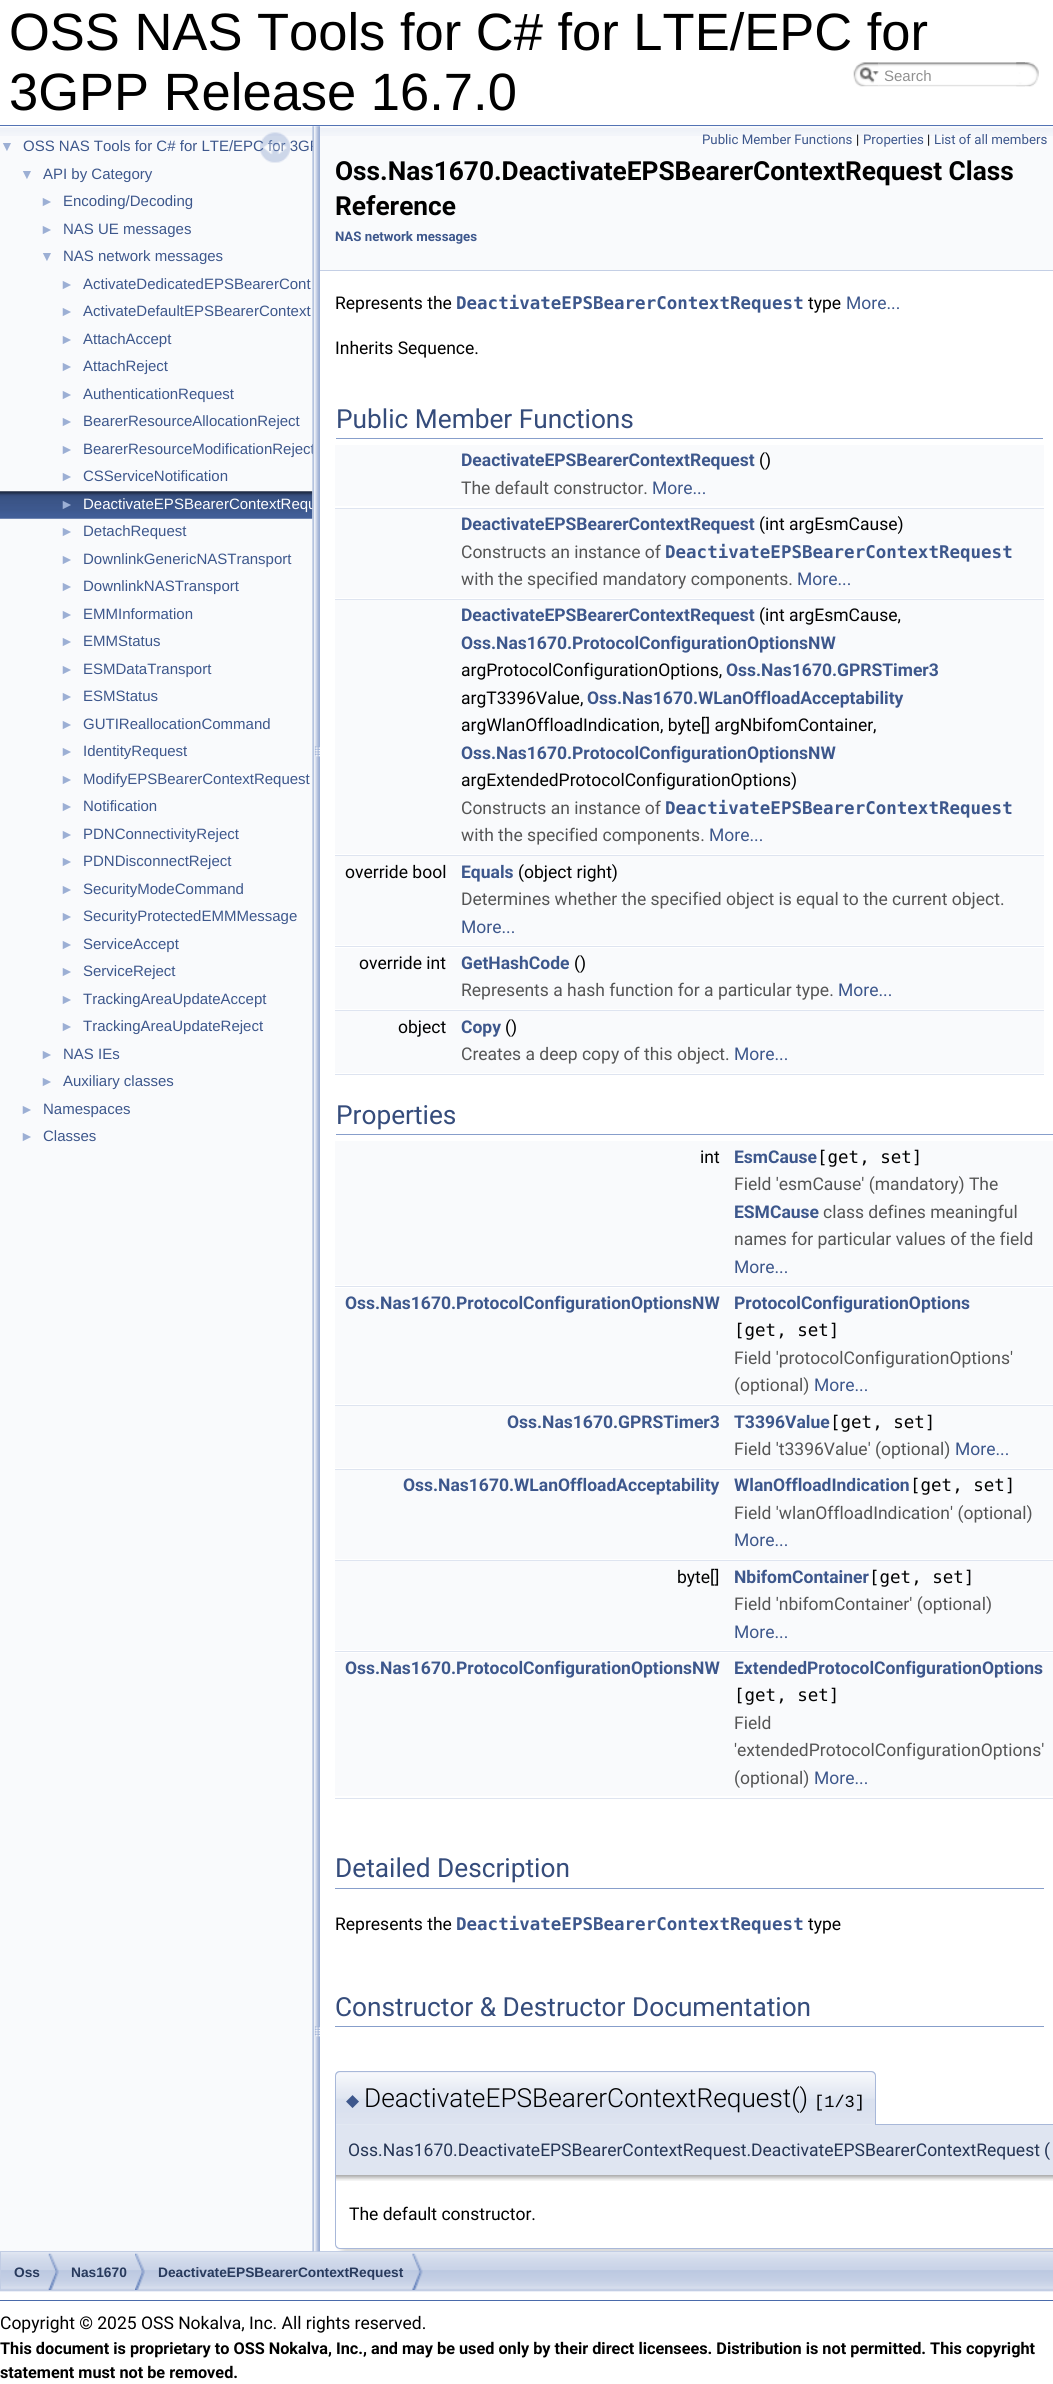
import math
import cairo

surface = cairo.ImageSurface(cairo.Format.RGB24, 1053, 2384)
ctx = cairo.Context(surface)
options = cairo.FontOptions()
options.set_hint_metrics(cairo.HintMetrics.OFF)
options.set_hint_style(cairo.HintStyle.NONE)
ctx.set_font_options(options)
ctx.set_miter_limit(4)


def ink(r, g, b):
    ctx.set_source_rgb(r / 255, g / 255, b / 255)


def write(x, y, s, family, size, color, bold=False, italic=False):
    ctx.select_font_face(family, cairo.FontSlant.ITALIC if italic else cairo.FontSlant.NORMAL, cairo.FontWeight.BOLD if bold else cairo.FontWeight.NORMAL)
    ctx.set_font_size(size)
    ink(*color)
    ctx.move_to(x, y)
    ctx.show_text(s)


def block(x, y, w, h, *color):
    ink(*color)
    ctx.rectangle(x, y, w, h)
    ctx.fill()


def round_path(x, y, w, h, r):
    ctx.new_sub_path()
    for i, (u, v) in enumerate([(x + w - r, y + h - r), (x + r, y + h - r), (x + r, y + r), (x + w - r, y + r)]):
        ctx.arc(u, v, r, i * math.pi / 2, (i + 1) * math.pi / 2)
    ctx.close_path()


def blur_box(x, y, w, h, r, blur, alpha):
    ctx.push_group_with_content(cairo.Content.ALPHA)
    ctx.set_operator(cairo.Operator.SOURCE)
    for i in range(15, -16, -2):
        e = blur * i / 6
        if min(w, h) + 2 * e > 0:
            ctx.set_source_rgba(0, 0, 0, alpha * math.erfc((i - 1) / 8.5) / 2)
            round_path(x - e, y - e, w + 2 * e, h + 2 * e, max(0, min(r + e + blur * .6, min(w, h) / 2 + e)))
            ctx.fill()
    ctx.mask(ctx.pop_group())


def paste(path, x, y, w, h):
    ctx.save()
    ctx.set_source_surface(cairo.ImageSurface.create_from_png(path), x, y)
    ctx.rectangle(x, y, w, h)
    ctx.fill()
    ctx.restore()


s1 = dict(family="Liberation Sans", size=52.5, color=(0, 0, 0))
s2 = dict(family="Liberation Sans", size=15, color=(144, 144, 144))
s3 = dict(family="Liberation Sans", size=15, color=(61, 87, 140))
s4 = dict(family="Liberation Sans", size=14, color=(156, 175, 212))
s5 = dict(family="Liberation Sans", size=15, color=(255, 255, 255))
s6 = dict(family="Roboto", size=13.25, color=(61, 87, 140))
s7 = dict(family="Roboto", size=13.25, color=(0, 0, 0))
s8 = dict(family="Roboto", size=26.25, color=(0, 0, 0), bold=True)
s9 = dict(family="Roboto", size=13.25, color=(61, 87, 140), bold=True)
s10 = dict(family="Roboto", size=17.5, color=(0, 0, 0))
s11 = dict(family="DejaVu Sans Mono", size=17.5, color=(61, 87, 140), bold=True)
s12 = dict(family="Roboto", size=17.5, color=(61, 87, 140))
s13 = dict(family="Roboto", size=26.25, color=(53, 76, 123))
s14 = dict(family="Roboto", size=17.5, color=(61, 87, 140), bold=True)
s15 = dict(family="Roboto", size=17.5, color=(85, 85, 85))
s16 = dict(family="DejaVu Sans Mono", size=17.5, color=(0, 0, 0))
s17 = dict(family="DejaVu Sans", size=17, color=(61, 87, 140))
s18 = dict(family="Roboto Light", size=26.25, color=(0, 0, 0))
s19 = dict(family="Liberation Mono", size=17, color=(0, 0, 0))
s20 = dict(family="Roboto", size=17.5, color=(37, 53, 85))
s21 = dict(family="Liberation Sans", size=13.75, color=(40, 58, 93), bold=True)
s22 = dict(family="Roboto", size=16.25, color=(0, 0, 0), bold=True)

ink(255, 255, 255)
ctx.paint()
block(0, 125, 1053, 1, 83, 115, 180)
write(9, 50, "OSS NAS Tools for C# for LTE/EPC for", **s1)
write(9, 110, "3GPP Release 16.7.0", **s1)
paste("pic1.png", 853, 62, 26, 25)
paste("pic2.png", 859, 67, 20, 16)
paste("pic3.png", 878, 62, 147, 25)
write(884, 81, "Search", **s2)
paste("pic4.png", 1016, 62, 23, 25)
block(0, 126, 313, 2125, 249, 250, 252)
paste("pic5.png", 0, 126, 313, 10)
write(23, 151, "OSS NAS Tools for C# for LTE/EPC for 3GP", **s3)
paste("pic6.png", 260, 132, 30, 31)
write(0, 151, "▼", **s4)
write(20, 179, "▼", **s4)
write(43, 179, "API by Category", **s3)
write(40, 206, "►", **s4)
write(63, 206, "Encoding/Decoding", **s3)
write(40, 234, "►", **s4)
write(63, 234, "NAS UE messages", **s3)
write(40, 261, "▼", **s4)
write(63, 261, "NAS network messages", **s3)
write(60, 289, "►", **s4)
write(83, 289, "ActivateDedicatedEPSBearerCont", **s3)
write(60, 316, "►", **s4)
write(83, 316, "ActivateDefaultEPSBearerContext", **s3)
write(60, 344, "►", **s4)
write(83, 344, "AttachAccept", **s3)
write(60, 371, "►", **s4)
write(83, 371, "AttachReject", **s3)
write(60, 399, "►", **s4)
write(83, 399, "AuthenticationRequest", **s3)
write(60, 426, "►", **s4)
write(83, 426, "BearerResourceAllocationReject", **s3)
write(60, 454, "►", **s4)
write(83, 454, "BearerResourceModificationReject", **s3)
write(60, 481, "►", **s4)
write(83, 481, "CSServiceNotification", **s3)
paste("pic7.png", 0, 491, 313, 28)
write(60, 509, "►", **s4)
write(83, 509, "DeactivateEPSBearerContextRequ", **s5)
write(60, 536, "►", **s4)
write(83, 536, "DetachRequest", **s3)
write(60, 564, "►", **s4)
write(83, 564, "DownlinkGenericNASTransport", **s3)
write(60, 591, "►", **s4)
write(83, 591, "DownlinkNASTransport", **s3)
write(60, 619, "►", **s4)
write(83, 619, "EMMInformation", **s3)
write(60, 646, "►", **s4)
write(83, 646, "EMMStatus", **s3)
write(60, 674, "►", **s4)
write(83, 674, "ESMDataTransport", **s3)
write(60, 701, "►", **s4)
write(83, 701, "ESMStatus", **s3)
write(60, 729, "►", **s4)
write(83, 729, "GUTIReallocationCommand", **s3)
write(60, 756, "►", **s4)
write(83, 756, "IdentityRequest", **s3)
write(60, 784, "►", **s4)
write(83, 784, "ModifyEPSBearerContextRequest", **s3)
write(60, 811, "►", **s4)
write(83, 811, "Notification", **s3)
write(60, 839, "►", **s4)
write(83, 839, "PDNConnectivityReject", **s3)
write(60, 866, "►", **s4)
write(83, 866, "PDNDisconnectReject", **s3)
write(60, 894, "►", **s4)
write(83, 894, "SecurityModeCommand", **s3)
write(60, 921, "►", **s4)
write(83, 921, "SecurityProtectedEMMMessage", **s3)
write(60, 949, "►", **s4)
write(83, 949, "ServiceAccept", **s3)
write(60, 976, "►", **s4)
write(83, 976, "ServiceReject", **s3)
write(60, 1004, "►", **s4)
write(83, 1004, "TrackingAreaUpdateAccept", **s3)
write(60, 1031, "►", **s4)
write(83, 1031, "TrackingAreaUpdateReject", **s3)
write(40, 1059, "►", **s4)
write(63, 1059, "NAS IEs", **s3)
write(40, 1086, "►", **s4)
write(63, 1086, "Auxiliary classes", **s3)
write(20, 1114, "►", **s4)
write(43, 1114, "Namespaces", **s3)
write(20, 1141, "►", **s4)
write(43, 1141, "Classes", **s3)
block(336, 2125, 717, 50, 223, 229, 241)
ink(168, 184, 217)
ctx.set_fill_rule(cairo.FillRule.EVEN_ODD)
ctx.new_path()
ctx.move_to(335, 2124)
ctx.line_to(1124, 2124)
ctx.curve_to(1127, 2124, 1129, 2126, 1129, 2129)
ctx.line_to(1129, 2175)
ctx.line_to(335, 2175)
ctx.close_path()
ctx.move_to(336, 2125)
ctx.line_to(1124, 2125)
ctx.curve_to(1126, 2125, 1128, 2127, 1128, 2129)
ctx.line_to(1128, 2175)
ctx.line_to(336, 2175)
ctx.close_path()
ctx.fill()
ink(0, 0, 0)
blur_box(341, 2181, 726, 74, 5, 3, 0.15)
paste("pic12.png", 0, 2252, 1053, 40)
ctx.rectangle(0.5, 2251.5, 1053, 39)
ink(194, 205, 228)
ctx.set_line_width(1)
ctx.stroke()
paste("pic8.png", 312, 126, 8, 2126)
block(320, 126, 733, 144, 249, 250, 252)
paste("pic9.png", 320, 128, 733, 8)
block(320, 270, 733, 1, 196, 207, 229)
write(702, 144, "Public Member Functions", **s6)
write(856, 144, "|", **s7)
write(863, 144, "Properties", **s6)
write(927, 144, "|", **s7)
write(934, 144, "List of all members", **s6)
write(335, 180, "Oss.Nas1670.DeactivateEPSBearerContextRequest Class", **s8)
write(335, 215, "Reference", **s8)
write(335, 241, "NAS network messages", **s9)
write(335, 309, "Represents the", **s10)
write(456, 309, "DeactivateEPSBearerContextRequest", **s11)
write(808, 309, "type", **s10)
write(846, 309, "More...", **s12)
write(335, 354, "Inherits Sequence.", **s10)
block(336, 438, 707, 1, 135, 158, 203)
write(336, 428, "Public Member Functions", **s13)
block(335, 445, 709, 29, 249, 250, 252)
write(461, 466, "DeactivateEPSBearerContextRequest", **s14)
write(759, 466, "()", **s10)
block(335, 474, 709, 32, 249, 250, 252)
write(461, 494, "The default constructor.", **s15)
write(652, 494, "More...", **s12)
block(335, 508, 709, 1, 222, 228, 240)
block(335, 509, 709, 29, 249, 250, 252)
write(461, 530, "DeactivateEPSBearerContextRequest", **s14)
write(759, 530, "(int argEsmCause)", **s10)
block(335, 538, 709, 60, 249, 250, 252)
write(461, 558, "Constructs an instance of", **s15)
write(665, 558, "DeactivateEPSBearerContextRequest", **s11)
write(461, 585, "with the specified mandatory components.", **s15)
write(797, 585, "More...", **s12)
block(335, 599, 709, 1, 222, 228, 240)
block(335, 600, 709, 194, 249, 250, 252)
write(461, 621, "DeactivateEPSBearerContextRequest", **s14)
write(759, 621, "(int argEsmCause,", **s10)
write(461, 649, "Oss.Nas1670.ProtocolConfigurationOptionsNW", **s14)
write(461, 676, "argProtocolConfigurationOptions,", **s10)
write(726, 676, "Oss.Nas1670.GPRSTimer3", **s14)
write(461, 704, "argT3396Value,", **s10)
write(587, 704, "Oss.Nas1670.WLanOffloadAcceptability", **s14)
write(461, 731, "argWlanOffloadIndication, byte[] argNbifomContainer,", **s10)
write(461, 759, "Oss.Nas1670.ProtocolConfigurationOptionsNW", **s14)
write(461, 786, "argExtendedProtocolConfigurationOptions)", **s10)
block(335, 794, 709, 60, 249, 250, 252)
write(461, 814, "Constructs an instance of", **s15)
write(665, 814, "DeactivateEPSBearerContextRequest", **s11)
write(461, 841, "with the specified components.", **s15)
write(709, 841, "More...", **s12)
block(335, 855, 709, 1, 222, 228, 240)
block(335, 856, 709, 29, 249, 250, 252)
write(345, 878, "override bool", **s10)
write(461, 878, "Equals", **s14)
write(518, 878, "(object right)", **s10)
block(335, 885, 709, 60, 249, 250, 252)
write(461, 905, "Determines whether the specified object is equal to the current object.", **s15)
write(461, 933, "More...", **s12)
block(335, 946, 709, 1, 222, 228, 240)
block(335, 948, 709, 28, 249, 250, 252)
write(359, 969, "override int", **s10)
write(461, 969, "GetHashCode", **s14)
write(574, 969, "()", **s10)
block(335, 976, 709, 33, 249, 250, 252)
write(461, 996, "Represents a hash function for a particular type.", **s15)
write(838, 996, "More...", **s12)
block(335, 1010, 709, 1, 222, 228, 240)
block(335, 1011, 709, 29, 249, 250, 252)
write(398, 1033, "object", **s10)
write(461, 1033, "Copy", **s14)
write(505, 1033, "()", **s10)
block(335, 1040, 709, 33, 249, 250, 252)
write(461, 1060, "Creates a deep copy of this object.", **s15)
write(734, 1060, "More...", **s12)
block(335, 1074, 709, 1, 222, 228, 240)
block(336, 1134, 717, 1, 135, 158, 203)
write(336, 1124, "Properties", **s13)
block(335, 1141, 718, 29, 249, 250, 252)
write(700, 1163, "int", **s10)
write(734, 1163, "EsmCause", **s14)
write(817, 1163, "[get, set]", **s16)
block(335, 1170, 718, 115, 249, 250, 252)
write(734, 1190, "Field 'esmCause' (mandatory) The", **s15)
write(734, 1218, "ESMCause", **s14)
write(823, 1218, "class defines meaningful", **s15)
write(734, 1245, "names for particular values of the field", **s15)
write(734, 1273, "More...", **s12)
block(335, 1286, 718, 1, 222, 228, 240)
block(335, 1288, 718, 56, 249, 250, 252)
write(345, 1309, "Oss.Nas1670.ProtocolConfigurationOptionsNW", **s14)
write(734, 1309, "ProtocolConfigurationOptions", **s14)
write(734, 1336, "[get, set]", **s16)
block(335, 1344, 718, 60, 249, 250, 252)
write(734, 1364, "Field 'protocolConfigurationOptions'", **s15)
write(734, 1391, "(optional)", **s15)
write(814, 1391, "More...", **s12)
block(335, 1405, 718, 1, 222, 228, 240)
block(335, 1406, 718, 29, 249, 250, 252)
write(507, 1428, "Oss.Nas1670.GPRSTimer3", **s14)
write(734, 1428, "T3396Value", **s14)
write(830, 1428, "[get, set]", **s16)
block(335, 1435, 718, 33, 249, 250, 252)
write(734, 1455, "Field 't3396Value' (optional)", **s15)
write(955, 1455, "More...", **s12)
block(335, 1469, 718, 1, 222, 228, 240)
block(335, 1470, 718, 29, 249, 250, 252)
write(403, 1491, "Oss.Nas1670.WLanOffloadAcceptability", **s14)
write(734, 1491, "WlanOffloadIndication", **s14)
write(910, 1491, "[get, set]", **s16)
block(335, 1499, 718, 60, 249, 250, 252)
write(734, 1519, "Field 'wlanOffloadIndication' (optional)", **s15)
write(734, 1546, "More...", **s12)
block(335, 1560, 718, 1, 222, 228, 240)
block(335, 1561, 718, 29, 249, 250, 252)
write(677, 1583, "byte[]", **s10)
write(734, 1583, "NbifomContainer", **s14)
write(869, 1583, "[get, set]", **s16)
block(335, 1590, 718, 60, 249, 250, 252)
write(734, 1610, "Field 'nbifomContainer' (optional)", **s15)
write(734, 1638, "More...", **s12)
block(335, 1651, 718, 1, 222, 228, 240)
block(335, 1653, 718, 56, 249, 250, 252)
write(345, 1674, "Oss.Nas1670.ProtocolConfigurationOptionsNW", **s14)
write(734, 1674, "ExtendedProtocolConfigurationOptions", **s14)
write(734, 1701, "[get, set]", **s16)
block(335, 1709, 718, 87, 249, 250, 252)
write(734, 1729, "Field", **s15)
write(734, 1756, "'extendedProtocolConfigurationOptions'", **s15)
write(734, 1784, "(optional)", **s15)
write(814, 1784, "More...", **s12)
block(335, 1798, 718, 1, 222, 228, 240)
block(335, 1888, 709, 1, 135, 158, 203)
write(335, 1877, "Detailed Description", **s13)
write(335, 1930, "Represents the", **s10)
write(456, 1930, "DeactivateEPSBearerContextRequest", **s11)
write(808, 1930, "type", **s10)
block(335, 2026, 709, 1, 135, 158, 203)
write(335, 2016, "Constructor & Destructor Documentation", **s13)
ink(226, 232, 242)
ctx.new_path()
ctx.move_to(340, 2071)
ctx.line_to(871, 2071)
ctx.curve_to(874, 2071, 876, 2073, 876, 2076)
ctx.line_to(876, 2125)
ctx.line_to(335, 2125)
ctx.line_to(335, 2076)
ctx.curve_to(335, 2073, 337, 2071, 340, 2071)
ctx.close_path()
ctx.fill()
paste("pic10.png", 335, 2072, 541, 52)
ink(168, 184, 217)
ctx.new_path()
ctx.move_to(340, 2071)
ctx.line_to(871, 2071)
ctx.curve_to(874, 2071, 876, 2073, 876, 2076)
ctx.line_to(876, 2125)
ctx.line_to(335, 2125)
ctx.line_to(335, 2076)
ctx.curve_to(335, 2073, 337, 2071, 340, 2071)
ctx.close_path()
ctx.move_to(340, 2072)
ctx.line_to(871, 2072)
ctx.curve_to(873, 2072, 875, 2074, 875, 2076)
ctx.line_to(875, 2125)
ctx.line_to(336, 2125)
ctx.line_to(336, 2076)
ctx.curve_to(336, 2074, 338, 2072, 340, 2072)
ctx.close_path()
ctx.fill()
write(346, 2106, "◆", **s17)
write(364, 2107, "DeactivateEPSBearerContextRequest()", **s18)
write(814, 2107, "[1/3]", **s19)
write(348, 2156, "Oss.Nas1670.DeactivateEPSBearerContextRequest.DeactivateEPSBearerContextRequest", **s20)
write(1044, 2156, "(", **s20)
ink(255, 255, 255)
ctx.new_path()
ctx.move_to(335, 2175)
ctx.line_to(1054, 2175)
ctx.line_to(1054, 2249)
ctx.line_to(340, 2249)
ctx.curve_to(337, 2249, 335, 2247, 335, 2244)
ctx.close_path()
ctx.fill()
paste("pic11.png", 336, 2175, 717, 6)
ink(168, 184, 217)
ctx.new_path()
ctx.move_to(335, 2175)
ctx.line_to(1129, 2175)
ctx.line_to(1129, 2244)
ctx.curve_to(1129, 2247, 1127, 2249, 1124, 2249)
ctx.line_to(340, 2249)
ctx.curve_to(337, 2249, 335, 2247, 335, 2244)
ctx.close_path()
ctx.move_to(336, 2175)
ctx.line_to(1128, 2175)
ctx.line_to(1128, 2244)
ctx.curve_to(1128, 2246, 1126, 2248, 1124, 2248)
ctx.line_to(340, 2248)
ctx.curve_to(338, 2248, 336, 2246, 336, 2244)
ctx.close_path()
ctx.fill()
write(349, 2220, "The default constructor.", **s10)
paste("pic13.png", 48, 2253, 11, 37)
write(14, 2277, "Oss", **s21)
paste("pic14.png", 135, 2253, 10, 37)
write(71, 2277, "Nas1670", **s21)
paste("pic15.png", 412, 2253, 11, 37)
write(158, 2277, "DeactivateEPSBearerContextRequest", **s21)
block(0, 2300, 1053, 1, 74, 106, 170)
write(0, 2329, "Copyright © 2025 OSS Nokalva, Inc. All rights reserved.", **s10)
write(0, 2354, "This document is proprietary to OSS Nokalva, Inc., and may be used only by their direct licensees. Distribution is not permitted. This copyright", **s22)
write(0, 2378, "statement must not be removed.", **s22)
surface.write_to_png("screenshot.png")
